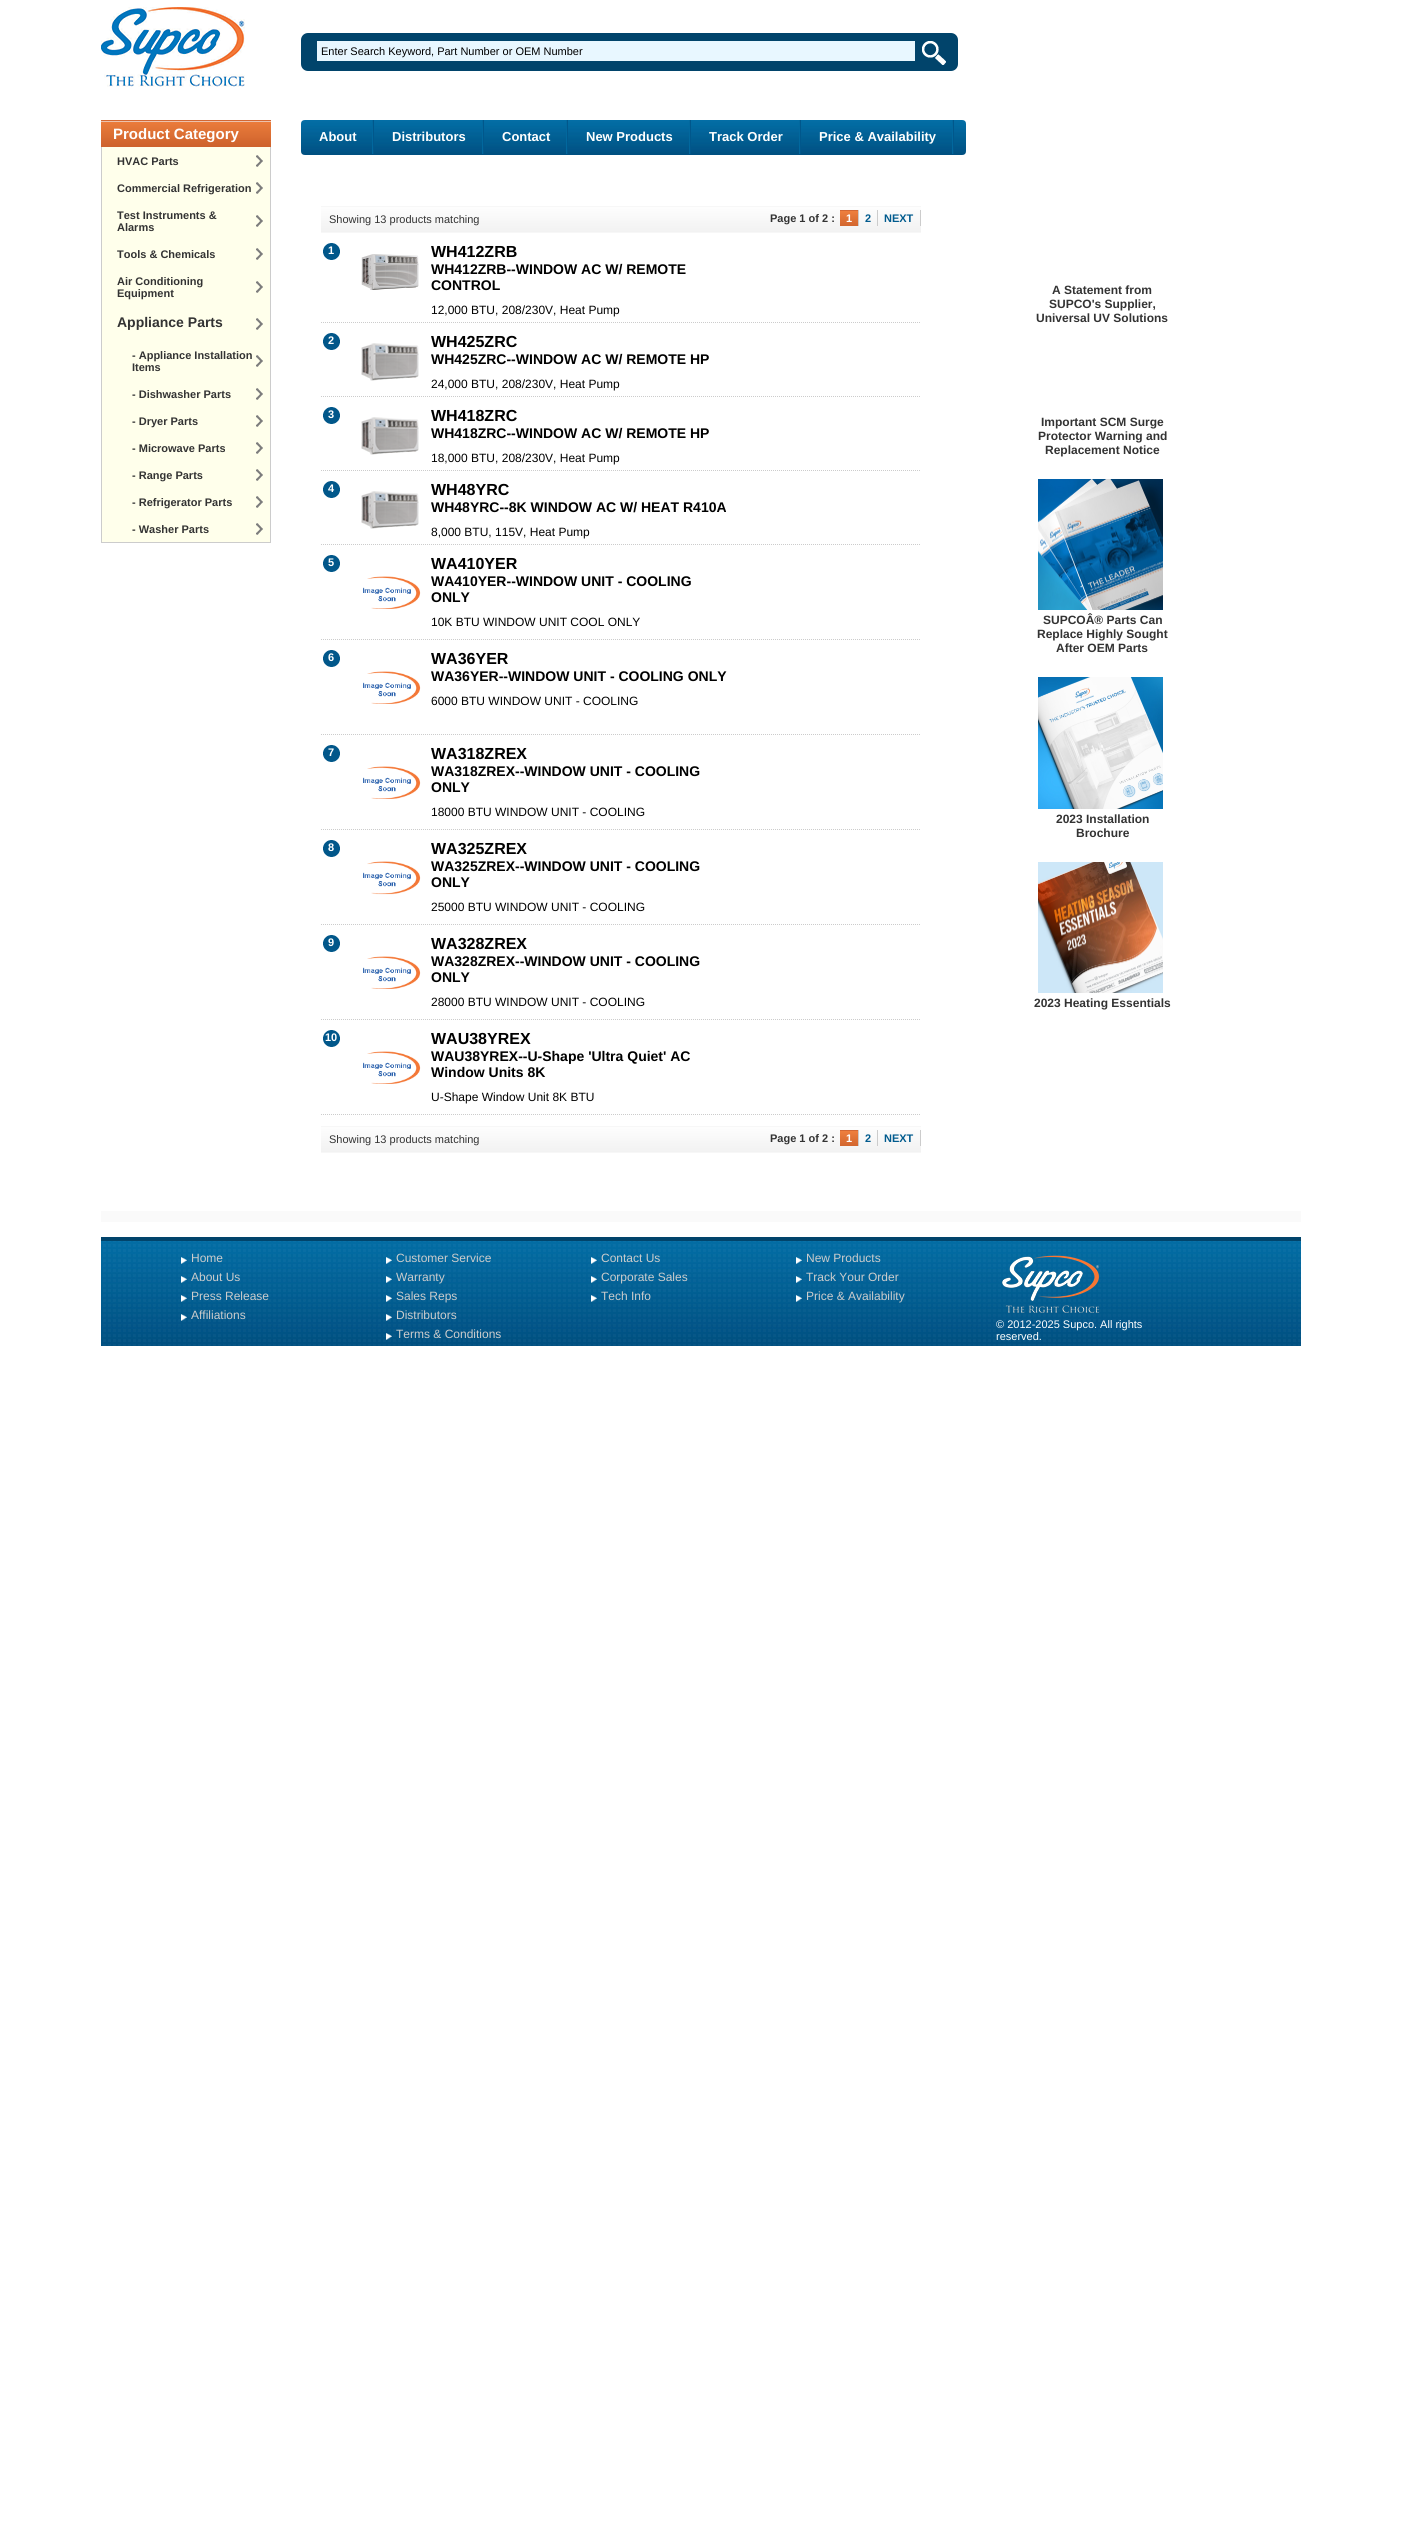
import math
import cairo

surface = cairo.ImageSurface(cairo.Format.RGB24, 1401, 2521)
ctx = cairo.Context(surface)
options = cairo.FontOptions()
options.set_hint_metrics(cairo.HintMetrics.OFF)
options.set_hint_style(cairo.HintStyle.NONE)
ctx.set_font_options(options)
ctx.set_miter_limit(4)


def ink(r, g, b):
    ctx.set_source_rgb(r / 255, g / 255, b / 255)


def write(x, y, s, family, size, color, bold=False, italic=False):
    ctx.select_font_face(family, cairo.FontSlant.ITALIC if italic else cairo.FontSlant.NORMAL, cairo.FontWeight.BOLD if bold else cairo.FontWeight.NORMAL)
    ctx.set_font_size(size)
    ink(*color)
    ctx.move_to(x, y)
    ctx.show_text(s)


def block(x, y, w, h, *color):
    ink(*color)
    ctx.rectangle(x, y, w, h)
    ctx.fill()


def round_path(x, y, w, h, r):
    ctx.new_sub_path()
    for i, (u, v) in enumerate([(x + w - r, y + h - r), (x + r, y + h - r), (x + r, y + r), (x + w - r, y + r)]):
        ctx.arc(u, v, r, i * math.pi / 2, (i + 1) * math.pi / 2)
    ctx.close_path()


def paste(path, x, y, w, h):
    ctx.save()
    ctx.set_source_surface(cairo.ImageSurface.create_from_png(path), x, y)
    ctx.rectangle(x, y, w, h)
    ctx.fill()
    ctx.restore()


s1 = dict(family="Liberation Sans", size=11, color=(0, 0, 0))
s2 = dict(family="Liberation Sans", size=15, color=(255, 255, 255), bold=True)
s3 = dict(family="Liberation Sans", size=11, color=(51, 51, 51), bold=True)
s4 = dict(family="Liberation Sans", size=14, color=(51, 51, 51), bold=True)
s5 = dict(family="Liberation Sans", size=13, color=(255, 255, 255), bold=True)
s6 = dict(family="Liberation Sans", size=11, color=(51, 51, 51))
s7 = dict(family="Liberation Sans", size=11, color=(255, 255, 255), bold=True)
s8 = dict(family="Liberation Sans", size=11, color=(1, 91, 142), bold=True)
s9 = dict(family="Liberation Sans", size=16, color=(0, 0, 0), bold=True)
s10 = dict(family="Liberation Sans", size=14, color=(0, 0, 0), bold=True)
s11 = dict(family="Liberation Sans", size=12, color=(0, 0, 0))
s12 = dict(family="Liberation Sans", size=12, color=(51, 51, 51), bold=True)
s13 = dict(family="Liberation Sans", size=12, color=(204, 204, 204))
s14 = dict(family="Liberation Sans", size=11, color=(255, 255, 255))

ink(255, 255, 255)
ctx.paint()
paste("pic1.png", 101, 7, 144, 80)
ink(1, 68, 107)
round_path(301, 33, 657, 38, 7)
ctx.fill()
block(317, 41, 598, 20, 232, 247, 255)
write(321, 55, "Enter Search Keyword, Part Number or OEM Number", **s1)
paste("pic2.png", 922, 41, 24, 24)
paste("pic3.png", 101, 120, 170, 27)
write(113, 139, "Product Category", **s2)
block(270, 147, 1, 396, 204, 204, 204)
block(101, 542, 170, 1, 204, 204, 204)
block(101, 147, 1, 396, 204, 204, 204)
block(102, 147, 168, 27, 255, 255, 235)
paste("pic4.png", 256, 155, 7, 12)
write(117, 165, "HVAC Parts", **s3)
block(102, 174, 168, 66, 255, 255, 235)
paste("pic4.png", 256, 182, 7, 12)
write(117, 192, "Commercial Refrigeration", **s3)
paste("pic4.png", 256, 215, 7, 12)
write(117, 219, "Test Instruments &", **s3)
write(117, 231, "Alarms", **s3)
block(102, 240, 168, 302, 255, 255, 235)
paste("pic4.png", 256, 248, 7, 12)
write(117, 258, "Tools & Chemicals", **s3)
paste("pic4.png", 256, 281, 7, 12)
write(117, 285, "Air Conditioning", **s3)
write(117, 297, "Equipment", **s3)
paste("pic4.png", 256, 318, 7, 12)
write(117, 327, "Appliance Parts", **s4)
paste("pic4.png", 256, 355, 7, 12)
write(132, 359, "- Appliance Installation", **s3)
write(132, 371, "Items", **s3)
paste("pic4.png", 256, 388, 7, 12)
write(132, 398, "- Dishwasher Parts", **s3)
paste("pic4.png", 256, 415, 7, 12)
write(132, 425, "- Dryer Parts", **s3)
paste("pic4.png", 256, 442, 7, 12)
write(132, 452, "- Microwave Parts", **s3)
paste("pic4.png", 256, 469, 7, 12)
write(132, 479, "- Range Parts", **s3)
paste("pic4.png", 256, 496, 7, 12)
write(132, 506, "- Refrigerator Parts", **s3)
paste("pic4.png", 256, 523, 7, 12)
write(132, 533, "- Washer Parts", **s3)
paste("pic5.png", 301, 120, 665, 35)
paste("pic6.png", 372, 120, 2, 34)
write(319, 141, "About", **s5)
paste("pic6.png", 482, 120, 2, 34)
write(392, 141, "Distributors", **s5)
paste("pic6.png", 566, 120, 2, 34)
write(502, 141, "Contact", **s5)
paste("pic6.png", 689, 120, 2, 34)
write(586, 141, "New Products", **s5)
paste("pic6.png", 799, 120, 2, 34)
write(709, 141, "Track Order", **s5)
paste("pic6.png", 952, 120, 2, 34)
write(819, 141, "Price & Availability", **s5)
paste("pic7.png", 321, 206, 600, 27)
write(329, 223, "Showing 13 products matching", **s6)
write(770, 222, "Page 1 of 2 :", **s3)
block(858, 210, 1, 16, 204, 204, 204)
paste("pic8.png", 840, 210, 18, 16)
write(846, 222, "1", **s7)
block(877, 210, 1, 16, 204, 204, 204)
write(865, 222, "2", **s8)
block(920, 210, 1, 16, 204, 204, 204)
write(884, 222, "NEXT", **s8)
paste("pic9.png", 323, 243, 17, 17)
ctx.new_path()
ctx.move_to(321, 322.5)
ctx.line_to(921, 322.5)
ink(204, 204, 204)
ctx.set_line_width(1)
ctx.set_dash([1, 1])
ctx.stroke()
write(328, 254, "1", **s7)
write(431, 257, "WH412ZRB", **s9)
write(431, 274, "WH412ZRB--WINDOW AC W/ REMOTE", **s10)
write(431, 290, "CONTROL", **s10)
write(431, 314, "12,000 BTU, 208/230V, Heat Pump", **s11)
paste("pic10.png", 361, 254, 58, 36)
paste("pic9.png", 323, 333, 17, 17)
ctx.new_path()
ctx.move_to(321, 396.5)
ctx.line_to(921, 396.5)
ink(204, 204, 204)
ctx.stroke()
write(328, 344, "2", **s7)
write(431, 347, "WH425ZRC", **s9)
write(431, 364, "WH425ZRC--WINDOW AC W/ REMOTE HP", **s10)
write(431, 388, "24,000 BTU, 208/230V, Heat Pump", **s11)
paste("pic11.png", 361, 343, 58, 38)
paste("pic9.png", 323, 407, 17, 17)
ctx.new_path()
ctx.move_to(321, 470.5)
ctx.line_to(921, 470.5)
ink(204, 204, 204)
ctx.stroke()
write(328, 418, "3", **s7)
write(431, 421, "WH418ZRC", **s9)
write(431, 438, "WH418ZRC--WINDOW AC W/ REMOTE HP", **s10)
write(431, 462, "18,000 BTU, 208/230V, Heat Pump", **s11)
paste("pic11.png", 361, 417, 58, 38)
paste("pic9.png", 323, 481, 17, 17)
ctx.new_path()
ctx.move_to(321, 544.5)
ctx.line_to(921, 544.5)
ink(204, 204, 204)
ctx.stroke()
write(328, 492, "4", **s7)
write(431, 495, "WH48YRC", **s9)
write(431, 512, "WH48YRC--8K WINDOW AC W/ HEAT R410A", **s10)
write(431, 536, "8,000 BTU, 115V, Heat Pump", **s11)
paste("pic11.png", 361, 491, 58, 38)
paste("pic9.png", 323, 555, 17, 17)
ctx.new_path()
ctx.move_to(321, 639.5)
ctx.line_to(921, 639.5)
ink(204, 204, 204)
ctx.stroke()
write(328, 566, "5", **s7)
write(431, 569, "WA410YER", **s9)
write(431, 586, "WA410YER--WINDOW UNIT - COOLING", **s10)
write(431, 602, "ONLY", **s10)
write(431, 626, "10K BTU WINDOW UNIT COOL ONLY", **s11)
paste("pic12.png", 363, 576, 58, 33)
paste("pic9.png", 323, 650, 17, 17)
ctx.new_path()
ctx.move_to(321, 734.5)
ctx.line_to(921, 734.5)
ink(204, 204, 204)
ctx.stroke()
write(328, 661, "6", **s7)
write(431, 664, "WA36YER", **s9)
write(431, 681, "WA36YER--WINDOW UNIT - COOLING ONLY", **s10)
write(431, 705, "6000 BTU WINDOW UNIT - COOLING", **s11)
paste("pic12.png", 363, 671, 58, 33)
paste("pic9.png", 323, 745, 17, 17)
ctx.new_path()
ctx.move_to(321, 829.5)
ctx.line_to(921, 829.5)
ink(204, 204, 204)
ctx.stroke()
write(328, 756, "7", **s7)
write(431, 759, "WA318ZREX", **s9)
write(431, 776, "WA318ZREX--WINDOW UNIT - COOLING", **s10)
write(431, 792, "ONLY", **s10)
write(431, 816, "18000 BTU WINDOW UNIT - COOLING", **s11)
paste("pic12.png", 363, 766, 58, 33)
paste("pic9.png", 323, 840, 17, 17)
ctx.new_path()
ctx.move_to(321, 924.5)
ctx.line_to(921, 924.5)
ink(204, 204, 204)
ctx.stroke()
write(328, 851, "8", **s7)
write(431, 854, "WA325ZREX", **s9)
write(431, 871, "WA325ZREX--WINDOW UNIT - COOLING", **s10)
write(431, 887, "ONLY", **s10)
write(431, 911, "25000 BTU WINDOW UNIT - COOLING", **s11)
paste("pic13.png", 363, 861, 58, 34)
paste("pic9.png", 323, 935, 17, 17)
ctx.new_path()
ctx.move_to(321, 1019.5)
ctx.line_to(921, 1019.5)
ink(204, 204, 204)
ctx.stroke()
write(328, 946, "9", **s7)
write(431, 949, "WA328ZREX", **s9)
write(431, 966, "WA328ZREX--WINDOW UNIT - COOLING", **s10)
write(431, 982, "ONLY", **s10)
write(431, 1006, "28000 BTU WINDOW UNIT - COOLING", **s11)
paste("pic12.png", 363, 956, 58, 33)
paste("pic9.png", 323, 1030, 17, 17)
ctx.new_path()
ctx.move_to(321, 1114.5)
ctx.line_to(921, 1114.5)
ink(204, 204, 204)
ctx.stroke()
write(325, 1041, "10", **s7)
write(431, 1044, "WAU38YREX", **s9)
write(431, 1061, "WAU38YREX--U-Shape 'Ultra Quiet' AC", **s10)
write(431, 1077, "Window Units 8K", **s10)
write(431, 1101, "U-Shape Window Unit 8K BTU", **s11)
paste("pic12.png", 363, 1051, 58, 33)
paste("pic7.png", 321, 1126, 600, 27)
write(329, 1143, "Showing 13 products matching", **s6)
write(770, 1142, "Page 1 of 2 :", **s3)
block(858, 1130, 1, 16, 204, 204, 204)
paste("pic8.png", 840, 1130, 18, 16)
write(846, 1142, "1", **s7)
block(877, 1130, 1, 16, 204, 204, 204)
write(865, 1142, "2", **s8)
block(920, 1130, 1, 16, 204, 204, 204)
write(884, 1142, "NEXT", **s8)
write(1052, 294, "A Statement from", **s12)
write(1049, 308, "SUPCO's Supplier,", **s12)
write(1036, 322, "Universal UV Solutions", **s12)
write(1041, 426, "Important SCM Surge", **s12)
write(1038, 440, "Protector Warning and", **s12)
write(1045, 454, "Replacement Notice", **s12)
paste("pic14.png", 1038, 479, 125, 131)
write(1043, 624, "SUPCOÂ® Parts Can", **s12)
write(1037, 638, "Replace Highly Sought", **s12)
write(1056, 652, "After OEM Parts", **s12)
paste("pic15.png", 1038, 677, 125, 132)
write(1056, 823, "2023 Installation", **s12)
write(1076, 837, "Brochure", **s12)
paste("pic16.png", 1038, 862, 125, 131)
write(1034, 1007, "2023 Heating Essentials", **s12)
block(101, 1211, 1200, 11, 250, 250, 250)
paste("pic17.png", 101, 1241, 1200, 105)
block(101, 1237, 1200, 4, 1, 68, 107)
paste("pic18.png", 181, 1257, 6, 7)
write(191, 1262, "Home", **s13)
paste("pic19.png", 181, 1276, 6, 7)
write(191, 1281, "About Us", **s13)
paste("pic20.png", 181, 1295, 6, 7)
write(191, 1300, "Press Release", **s13)
paste("pic21.png", 181, 1314, 6, 7)
write(191, 1319, "Affiliations", **s13)
paste("pic22.png", 386, 1257, 6, 7)
write(396, 1262, "Customer Service", **s13)
paste("pic23.png", 386, 1276, 6, 7)
write(396, 1281, "Warranty", **s13)
paste("pic24.png", 386, 1295, 6, 7)
write(396, 1300, "Sales Reps", **s13)
paste("pic25.png", 386, 1314, 6, 7)
write(396, 1319, "Distributors", **s13)
paste("pic26.png", 386, 1333, 6, 7)
write(396, 1338, "Terms & Conditions", **s13)
paste("pic27.png", 591, 1257, 6, 7)
write(601, 1262, "Contact Us", **s13)
paste("pic28.png", 591, 1276, 6, 7)
write(601, 1281, "Corporate Sales", **s13)
paste("pic29.png", 591, 1295, 6, 7)
write(601, 1300, "Tech Info", **s13)
paste("pic30.png", 796, 1257, 6, 7)
write(806, 1262, "New Products", **s13)
paste("pic31.png", 796, 1276, 6, 7)
write(806, 1281, "Track Your Order", **s13)
paste("pic32.png", 796, 1295, 6, 7)
write(806, 1300, "Price & Availability", **s13)
paste("pic33.png", 1002, 1255, 98, 58)
write(996, 1328, "© 2012-2025 Supco. All rights", **s14)
write(996, 1340, "reserved.", **s14)
surface.write_to_png("screenshot.png")
